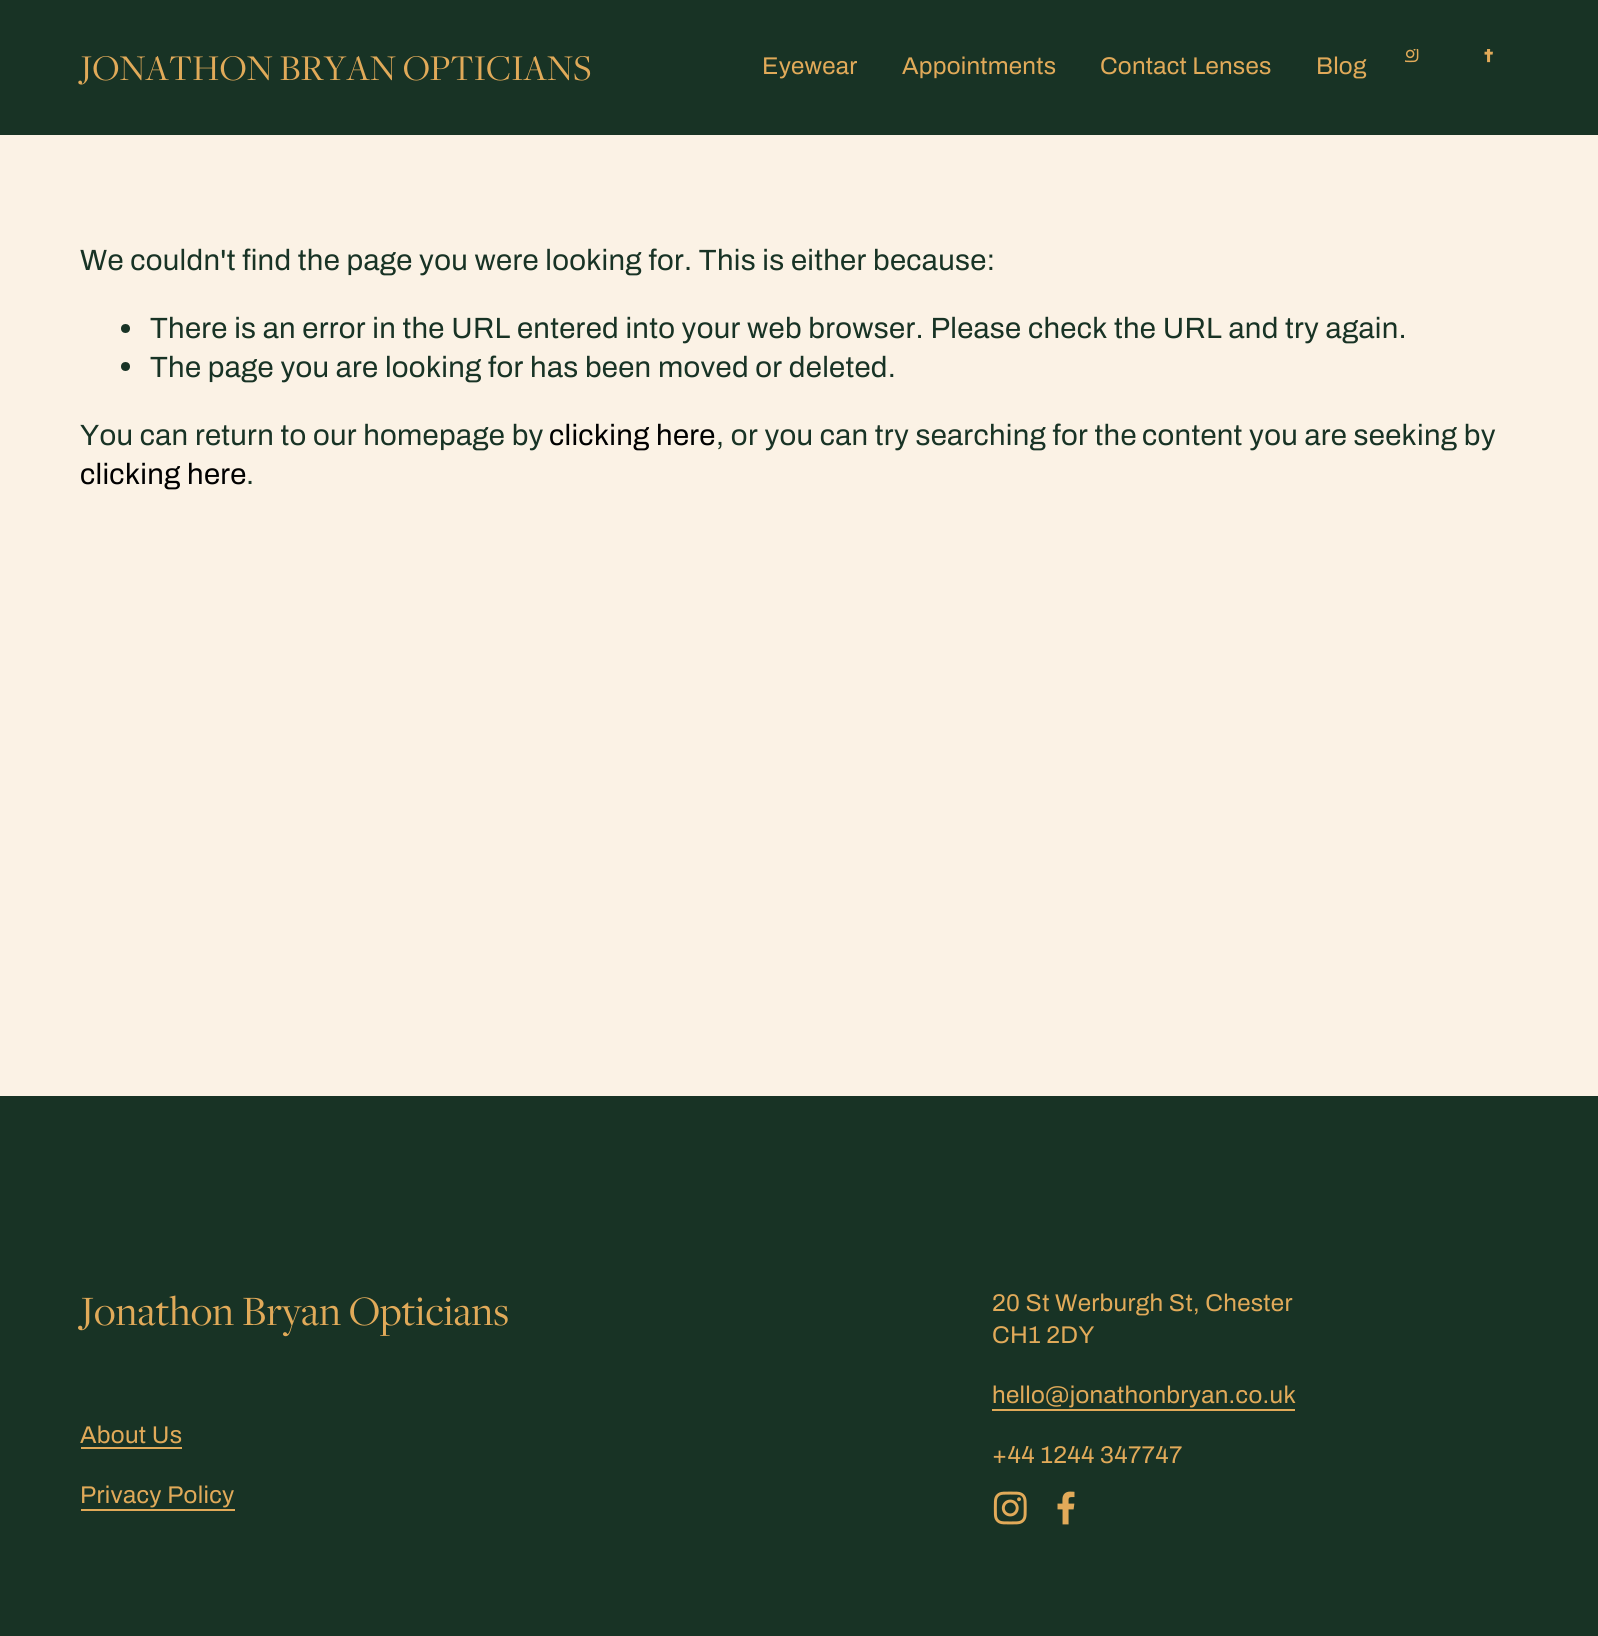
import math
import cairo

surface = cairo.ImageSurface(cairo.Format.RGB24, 1598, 1636)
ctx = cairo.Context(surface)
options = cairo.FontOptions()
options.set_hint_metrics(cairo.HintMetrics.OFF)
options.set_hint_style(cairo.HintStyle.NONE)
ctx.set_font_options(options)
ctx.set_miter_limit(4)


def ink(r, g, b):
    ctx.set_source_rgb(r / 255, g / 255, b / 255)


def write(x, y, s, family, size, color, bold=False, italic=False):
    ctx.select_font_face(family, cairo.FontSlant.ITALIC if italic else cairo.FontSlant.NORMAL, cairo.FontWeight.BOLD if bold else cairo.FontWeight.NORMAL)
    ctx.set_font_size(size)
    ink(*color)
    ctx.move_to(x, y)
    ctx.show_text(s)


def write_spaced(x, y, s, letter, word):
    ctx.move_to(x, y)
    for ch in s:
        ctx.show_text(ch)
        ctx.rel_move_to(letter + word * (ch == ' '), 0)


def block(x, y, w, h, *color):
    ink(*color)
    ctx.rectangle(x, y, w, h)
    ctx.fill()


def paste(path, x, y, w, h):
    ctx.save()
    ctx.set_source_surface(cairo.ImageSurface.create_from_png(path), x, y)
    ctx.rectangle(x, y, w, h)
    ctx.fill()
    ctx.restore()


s1 = dict(family="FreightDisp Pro", size=37.6, color=(225, 170, 89))
s2 = dict(family="FreightDisp Pro", size=43.4, color=(225, 170, 89))

ink(251, 242, 229)
ctx.paint()
block(0, 0, 1598, 135, 24, 51, 37)
write(80, 80, "JONATHON BRYAN OPTICIANS", **s1)
ctx.select_font_face("Archivo")
ctx.set_font_size(24.2)
write_spaced(762, 74, "Eyewear", 0.25, 0)
write_spaced(902, 74, "Appointments", 0.25, 0)
write_spaced(1100, 74, "Contact Lenses", 0.25, 0)
write_spaced(1316, 74, "Blog", 0.25, 0)
paste("pic1.png", 1405, 49, 14, 14)
paste("pic2.png", 1484, 49, 9, 14)
ctx.set_font_size(29.35)
ink(24, 51, 37)
write_spaced(80, 270, "We couldn't find the page you were looking for. This is either because:", 0.3, 0)
ctx.new_path()
ctx.arc(125.5, 328.5, 4.5, 0, 2 * math.pi)
ctx.fill()
write_spaced(150, 338, "There is an error in the URL entered into your web browser. Please check the URL and try again.", 0.3, 0)
ctx.new_path()
ctx.arc(125.5, 366.5, 4.5, 0, 2 * math.pi)
ctx.fill()
write_spaced(150, 377, "The page you are looking for has been moved or deleted.", 0.3, 0)
write_spaced(80, 445, "You can return to our homepage by", 0.3, 0)
ink(0, 0, 0)
write_spaced(549, 445, "clicking here", 0.3, 0)
ink(24, 51, 37)
write_spaced(716, 445, ", or you can try searching for the", 0.3, 0)
write_spaced(1142, 445, "content you are seeking by", 0.3, 0)
ink(0, 0, 0)
write_spaced(80, 484, "clicking here", 0.3, 0)
ink(24, 51, 37)
write_spaced(246, 484, ".", 0.3, 0)
block(0, 1096, 1598, 540, 24, 51, 37)
write(80, 1325, "Jonathon Bryan Opticians", **s2)
ctx.select_font_face("Archivo")
ctx.set_font_size(24.2)
write_spaced(992, 1311, "20 St Werburgh St, Chester", 0.3, 0)
write_spaced(992, 1343, "CH1 2DY", 0.3, 0)
write_spaced(992, 1403, "hello@jonathonbryan.co.uk", 0.3, 0)
block(992, 1409, 303, 2, 225, 170, 89)
write_spaced(992, 1463, "+44 1244 347747", 0.3, 0)
write_spaced(80, 1443, "About Us", 0.3, 0)
block(81, 1447, 101, 2, 225, 170, 89)
write_spaced(80, 1503, "Privacy Policy", 0.3, 0)
block(81, 1509, 154, 2, 225, 170, 89)
paste("pic3.png", 993, 1491, 34, 34)
paste("pic4.png", 1057, 1491, 18, 34)
surface.write_to_png("screenshot.png")
